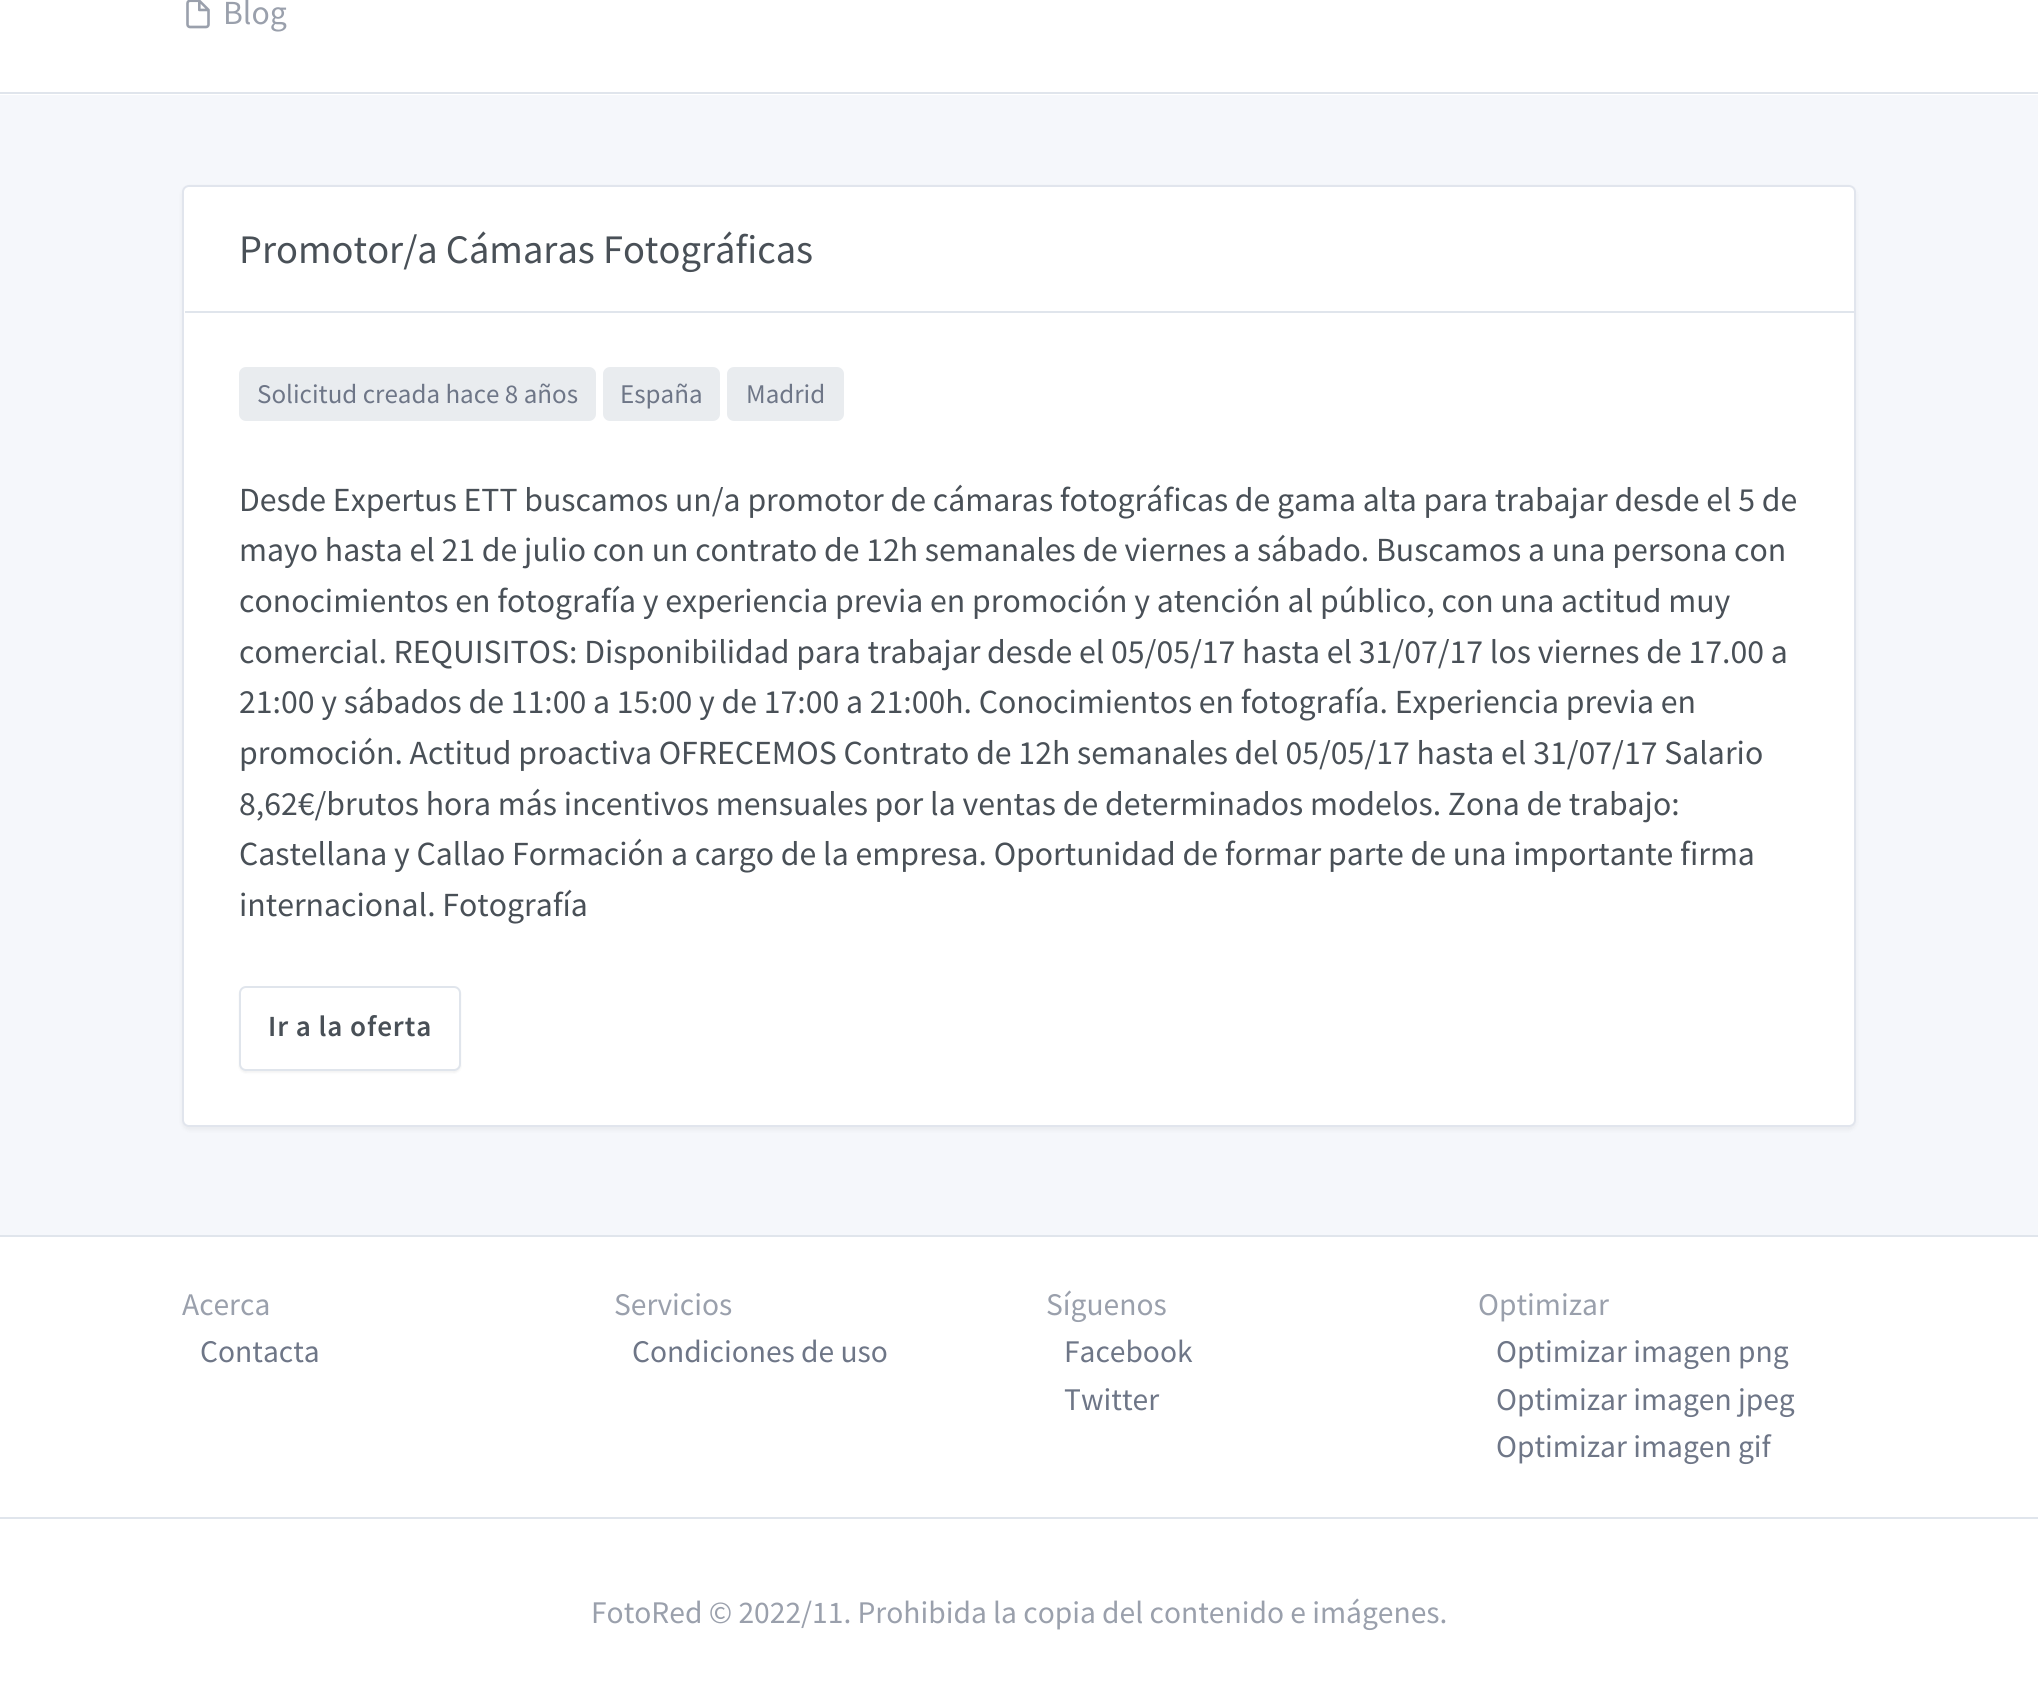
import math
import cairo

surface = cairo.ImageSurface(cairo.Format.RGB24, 2038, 1683)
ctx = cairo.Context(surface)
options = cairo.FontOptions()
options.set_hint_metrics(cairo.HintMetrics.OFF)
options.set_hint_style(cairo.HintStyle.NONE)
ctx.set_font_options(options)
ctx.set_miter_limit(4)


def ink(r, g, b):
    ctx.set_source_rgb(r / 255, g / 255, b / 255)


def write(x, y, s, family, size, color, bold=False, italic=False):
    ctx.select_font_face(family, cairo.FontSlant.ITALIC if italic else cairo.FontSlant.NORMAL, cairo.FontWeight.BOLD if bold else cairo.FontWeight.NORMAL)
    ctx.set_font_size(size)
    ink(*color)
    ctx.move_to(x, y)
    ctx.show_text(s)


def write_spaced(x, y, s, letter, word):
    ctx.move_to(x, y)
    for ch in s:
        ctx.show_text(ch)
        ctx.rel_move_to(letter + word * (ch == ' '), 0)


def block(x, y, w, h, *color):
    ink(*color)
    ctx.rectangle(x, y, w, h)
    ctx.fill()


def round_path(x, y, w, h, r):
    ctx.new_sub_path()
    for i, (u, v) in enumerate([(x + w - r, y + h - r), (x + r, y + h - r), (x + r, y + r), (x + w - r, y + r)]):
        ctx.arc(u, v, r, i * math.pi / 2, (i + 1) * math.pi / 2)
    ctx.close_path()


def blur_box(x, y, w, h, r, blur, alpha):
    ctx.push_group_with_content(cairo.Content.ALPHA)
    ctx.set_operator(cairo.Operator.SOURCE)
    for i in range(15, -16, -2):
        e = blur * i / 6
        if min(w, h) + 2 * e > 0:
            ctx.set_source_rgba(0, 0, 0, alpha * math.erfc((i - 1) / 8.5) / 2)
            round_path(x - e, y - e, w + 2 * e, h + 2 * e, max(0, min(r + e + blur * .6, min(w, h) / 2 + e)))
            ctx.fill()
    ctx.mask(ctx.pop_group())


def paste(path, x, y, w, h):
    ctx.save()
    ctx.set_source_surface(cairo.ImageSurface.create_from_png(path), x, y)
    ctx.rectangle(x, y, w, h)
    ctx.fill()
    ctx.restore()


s1 = dict(family="Source Sans Pro", size=33.75, color=(154, 160, 172))
s2 = dict(family="Source Sans Pro", size=40.5, color=(73, 80, 87))
s3 = dict(family="Source Sans Pro", size=27, color=(110, 118, 135))
s4 = dict(family="Source Sans Pro", size=33.75, color=(73, 80, 87))
s5 = dict(family="Source Sans Pro", size=31.5, color=(154, 160, 172))
s6 = dict(family="Source Sans Pro", size=31.5, color=(110, 118, 135))

ink(245, 247, 251)
ctx.paint()
block(0, 0, 2038, 95, 255, 255, 255)
block(0, 92, 2038, 2, 224, 229, 236)
paste("pic1.png", 186, 0, 24, 29)
write(223, 24, "Blog", **s1)
ink(0, 0, 0)
blur_box(182, 187, 1674, 943, 7, 2, 0.05)
ink(255, 255, 255)
round_path(182, 185, 1674, 942, 7)
ctx.fill()
round_path(183, 186, 1672, 940, 6)
ctx.set_source_rgba(0, 0.157, 0.392, 0.12)
ctx.stroke()
block(185, 311, 1669, 2, 224, 229, 236)
write(239, 263, "Promotor/a Cámaras Fotográficas", **s2)
ink(233, 236, 239)
round_path(239, 367, 357, 54, 7)
ctx.fill()
write(257, 403, "Solicitud creada hace 8 años", **s3)
ink(233, 236, 239)
round_path(603, 367, 117, 54, 7)
ctx.fill()
write(620, 403, "España", **s3)
ink(233, 236, 239)
round_path(727, 367, 117, 54, 7)
ctx.fill()
write(746, 403, "Madrid", **s3)
write(239, 511, "Desde Expertus ETT buscamos un/a promotor de cámaras fotográficas de gama alta para trabajar desde el 5 de", **s4)
write(239, 561, "mayo hasta el 21 de julio con un contrato de 12h semanales de viernes a sábado. Buscamos a una persona con", **s4)
write(239, 612, "conocimientos en fotografía y experiencia previa en promoción y atención al público, con una actitud muy", **s4)
write(239, 663, "comercial. REQUISITOS: Disponibilidad para trabajar desde el 05/05/17 hasta el 31/07/17 los viernes de 17.00 a", **s4)
write(239, 713, "21:00 y sábados de 11:00 a 15:00 y de 17:00 a 21:00h. Conocimientos en fotografía. Experiencia previa en", **s4)
write(239, 764, "promoción. Actitud proactiva OFRECEMOS Contrato de 12h semanales del 05/05/17 hasta el 31/07/17 Salario", **s4)
write(239, 815, "8,62€/brutos hora más incentivos mensuales por la ventas de determinados modelos. Zona de trabajo:", **s4)
write(239, 865, "Castellana y Callao Formación a cargo de la empresa. Oportunidad de formar parte de una importante firma", **s4)
write(239, 916, "internacional. Fotografía", **s4)
ink(0, 0, 0)
blur_box(239, 988, 222, 85, 7, 1, 0.05)
ink(255, 255, 255)
round_path(240, 987, 220, 83, 6)
ctx.fill_preserve()
ink(224, 229, 236)
ctx.stroke()
ctx.select_font_face("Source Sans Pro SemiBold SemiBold")
ctx.set_font_size(29.25)
ink(73, 80, 87)
write_spaced(268, 1036, "Ir a la oferta", 0.9, 0)
block(0, 1237, 2038, 280, 255, 255, 255)
block(0, 1235, 2038, 2, 224, 229, 236)
write(182, 1315, "Acerca", **s5)
write(200, 1362, "Contacta", **s6)
write(614, 1315, "Servicios", **s5)
write(632, 1362, "Condiciones de uso", **s6)
write(1046, 1315, "Síguenos", **s5)
write(1064, 1362, "Facebook", **s6)
write(1064, 1410, "Twitter", **s6)
write(1478, 1315, "Optimizar", **s5)
write(1496, 1362, "Optimizar imagen png", **s6)
write(1496, 1410, "Optimizar imagen jpeg", **s6)
write(1496, 1457, "Optimizar imagen gif", **s6)
block(0, 1519, 2038, 164, 255, 255, 255)
block(0, 1517, 2038, 2, 224, 229, 236)
write(591, 1623, "FotoRed © 2022/11. Prohibida la copia del contenido e imágenes.", **s5)
surface.write_to_png("screenshot.png")
